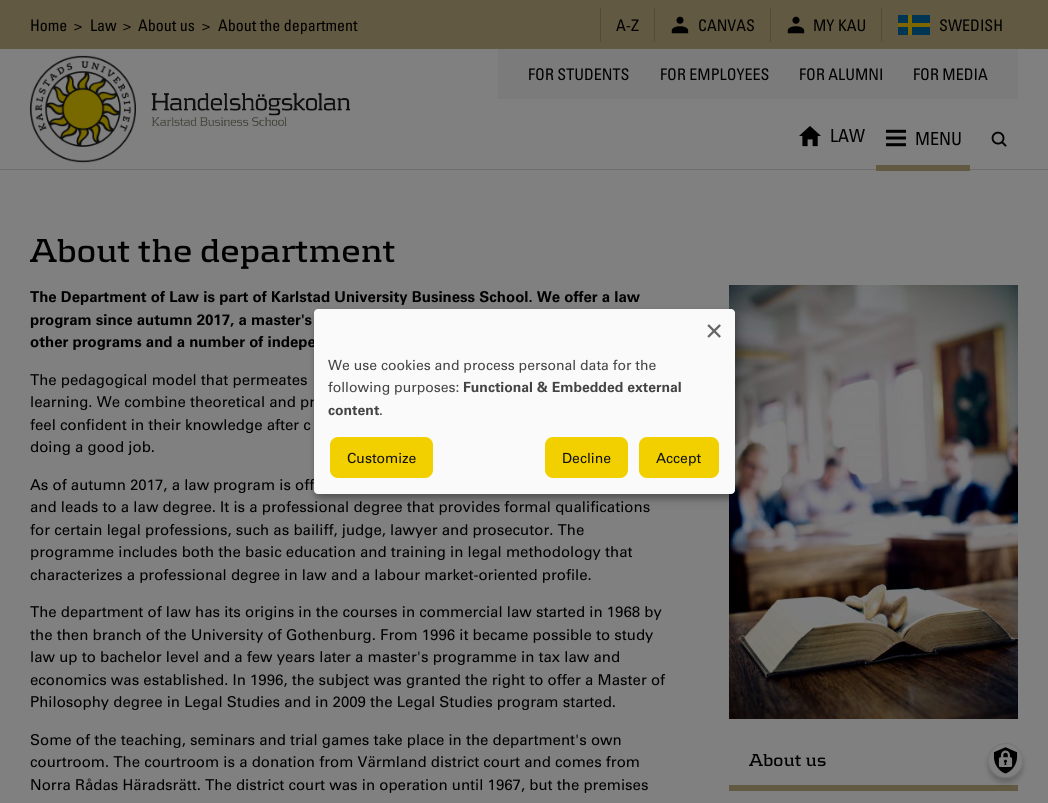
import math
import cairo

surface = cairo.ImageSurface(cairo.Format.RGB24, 1048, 803)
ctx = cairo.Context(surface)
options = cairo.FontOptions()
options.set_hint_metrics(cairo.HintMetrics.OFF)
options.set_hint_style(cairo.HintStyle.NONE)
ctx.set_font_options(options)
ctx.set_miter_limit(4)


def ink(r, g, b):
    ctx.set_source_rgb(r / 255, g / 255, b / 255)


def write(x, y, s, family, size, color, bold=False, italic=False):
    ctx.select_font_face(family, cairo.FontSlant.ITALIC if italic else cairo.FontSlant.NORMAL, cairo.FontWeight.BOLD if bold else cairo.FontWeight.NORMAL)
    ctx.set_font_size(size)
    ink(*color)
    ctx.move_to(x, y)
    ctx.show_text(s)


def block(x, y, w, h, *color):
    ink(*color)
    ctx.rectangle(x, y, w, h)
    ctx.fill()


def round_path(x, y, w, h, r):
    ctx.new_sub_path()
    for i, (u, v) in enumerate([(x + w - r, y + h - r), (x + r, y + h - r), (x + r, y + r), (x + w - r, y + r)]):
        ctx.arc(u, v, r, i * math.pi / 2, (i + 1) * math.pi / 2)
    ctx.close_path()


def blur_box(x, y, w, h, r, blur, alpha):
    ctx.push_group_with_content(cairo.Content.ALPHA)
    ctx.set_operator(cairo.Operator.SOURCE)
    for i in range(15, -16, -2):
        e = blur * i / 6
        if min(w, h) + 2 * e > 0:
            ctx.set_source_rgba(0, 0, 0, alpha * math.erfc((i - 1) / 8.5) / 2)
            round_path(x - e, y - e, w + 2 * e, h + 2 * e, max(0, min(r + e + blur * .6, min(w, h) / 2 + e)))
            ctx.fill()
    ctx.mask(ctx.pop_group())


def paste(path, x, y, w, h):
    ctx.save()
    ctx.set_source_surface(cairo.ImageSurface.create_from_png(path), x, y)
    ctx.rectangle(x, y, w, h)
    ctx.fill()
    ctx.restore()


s1 = dict(family="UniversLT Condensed", size=16, color=(0, 0, 0))
s2 = dict(family="UniversLT Condensed", size=18, color=(0, 0, 0))
s3 = dict(family="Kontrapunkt", size=34.5, color=(0, 0, 0), bold=True)
s4 = dict(family="Univers", size=15, color=(0, 0, 0), bold=True)
s5 = dict(family="Univers", size=15, color=(0, 0, 0))
s6 = dict(family="Kontrapunkt", size=18, color=(0, 0, 0), bold=True)
s7 = dict(family="Univers", size=28, color=(102, 102, 102))
s8 = dict(family="Univers", size=14, color=(68, 68, 68))
s9 = dict(family="Univers", size=14, color=(68, 68, 68), bold=True)
s10 = dict(family="Univers", size=14, color=(17, 17, 17))

ink(128, 128, 128)
ctx.paint()
block(0, 0, 1048, 49, 97, 89, 65)
write(30, 31, "Home", **s1)
write(74, 31, ">", **s1)
write(90, 31, "Law", **s1)
write(123, 31, ">", **s1)
write(138, 31, "About us", **s1)
write(202, 31, ">", **s1)
write(218, 31, "About the department", **s1)
block(600, 8, 1, 34, 82, 75, 55)
write(616, 31, "A-Z", **s1)
block(654, 8, 1, 34, 82, 75, 55)
paste("pic1.png", 671, 16, 18, 18)
write(698, 31, "CANVAS", **s1)
block(770, 8, 1, 34, 82, 75, 55)
paste("pic1.png", 787, 16, 18, 18)
write(813, 31, "MY KAU", **s1)
block(881, 8, 1, 34, 82, 75, 55)
block(898, 15, 32, 20, 0, 53, 84)
block(908, 15, 4, 20, 127, 102, 0)
block(898, 23, 32, 4, 127, 102, 0)
write(939, 31, "SWEDISH", **s1)
paste("pic2.png", 30, 55, 106, 108)
paste("pic3.png", 151, 93, 199, 33)
block(498, 49, 520, 50, 123, 123, 123)
write(528, 80, "FOR STUDENTS", **s1)
write(660, 80, "FOR EMPLOYEES", **s1)
write(799, 80, "FOR ALUMNI", **s1)
write(913, 80, "FOR MEDIA", **s1)
paste("pic4.png", 799, 126, 22, 21)
write(830, 142, "LAW", **s2)
block(0, 169, 1048, 1, 109, 109, 109)
block(876, 165, 94, 6, 97, 89, 65)
paste("pic5.png", 886, 129, 20, 18)
write(915, 145, "MENU", **s2)
paste("pic6.png", 991, 131, 16, 16)
write(30, 262, "About the department", **s3)
write(30, 302, "The Department of Law is part of Karlstad University Business School. We offer a law", **s4)
write(30, 325, "program since autumn 2017, a master's", **s4)
write(30, 347, "other programs and a number of indepe", **s4)
write(30, 385, "The pedagogical model that permeates", **s5)
write(30, 407, "learning. We combine theoretical and pr", **s5)
write(30, 430, "feel confident in their knowledge after c", **s5)
write(30, 452, "doing a good job.", **s5)
write(30, 490, "As of autumn 2017, a law program is off", **s5)
write(30, 512, "and leads to a law degree. It is a professional degree that provides formal qualifications", **s5)
write(30, 535, "for certain legal professions, such as bailiff, judge, lawyer and prosecutor. The", **s5)
write(30, 557, "programme includes both the basic education and training in legal methodology that", **s5)
write(30, 580, "characterizes a professional degree in law and a labour market-oriented profile.", **s5)
write(30, 617, "The department of law has its origins in the courses in commercial law started in 1968 by", **s5)
write(30, 640, "the then branch of the University of Gothenburg. From 1996 it became possible to study", **s5)
write(30, 662, "law up to bachelor level and a few years later a master's programme in tax law and", **s5)
write(30, 685, "economics was established. In 1996, the subject was granted the right to offer a Master of", **s5)
write(30, 707, "Philosophy degree in Legal Studies and in 2009 the Legal Studies program started.", **s5)
write(30, 745, "Some of the teaching, seminars and trial games take place in the department's own", **s5)
write(30, 767, "courtroom. The courtroom is a donation from Värmland district court and comes from", **s5)
write(30, 790, "Norra Rådas Häradsrätt. The district court was in operation until 1967, but the premises", **s5)
paste("pic7.png", 729, 285, 289, 434)
block(729, 785, 289, 6, 97, 89, 65)
write(749, 766, "About us", **s6)
ink(0, 0, 0)
blur_box(319, 314, 421, 185, 4, 5, 0.19)
blur_box(314, 313, 421, 185, 4, 3, 0.2)
ink(250, 250, 250)
round_path(314, 309, 421, 185, 4)
ctx.fill()
write(706, 338, "×", **s7)
write(328, 370, "We use cookies and process personal data for the", **s8)
write(328, 392, "following purposes:", **s8)
write(463, 392, "Functional & Embedded external", **s9)
write(328, 415, "content", **s9)
write(379, 415, ".", **s8)
ink(242, 208, 0)
round_path(329, 436, 105, 43, 9)
ctx.fill_preserve()
ink(250, 250, 250)
ctx.stroke()
write(347, 463, "Customize", **s10)
ink(242, 208, 0)
round_path(544, 436, 85, 43, 9)
ctx.fill_preserve()
ink(250, 250, 250)
ctx.stroke()
write(562, 463, "Decline", **s10)
ink(242, 208, 0)
round_path(638, 436, 82, 43, 9)
ctx.fill_preserve()
ink(250, 250, 250)
ctx.stroke()
write(656, 463, "Accept", **s10)
ink(0, 0, 0)
blur_box(988, 748, 35, 35, 17.5, 2.5, 0.2)
ink(128, 128, 128)
ctx.arc(1005.5, 760.5, 17.5, 0, 2 * math.pi)
ctx.fill()
paste("pic8.png", 993, 747, 25, 27)
ctx.arc(1005.5, 760.5, 17, 0, 2 * math.pi)
ink(117, 117, 117)
ctx.set_line_width(1)
ctx.stroke()
surface.write_to_png("screenshot.png")
